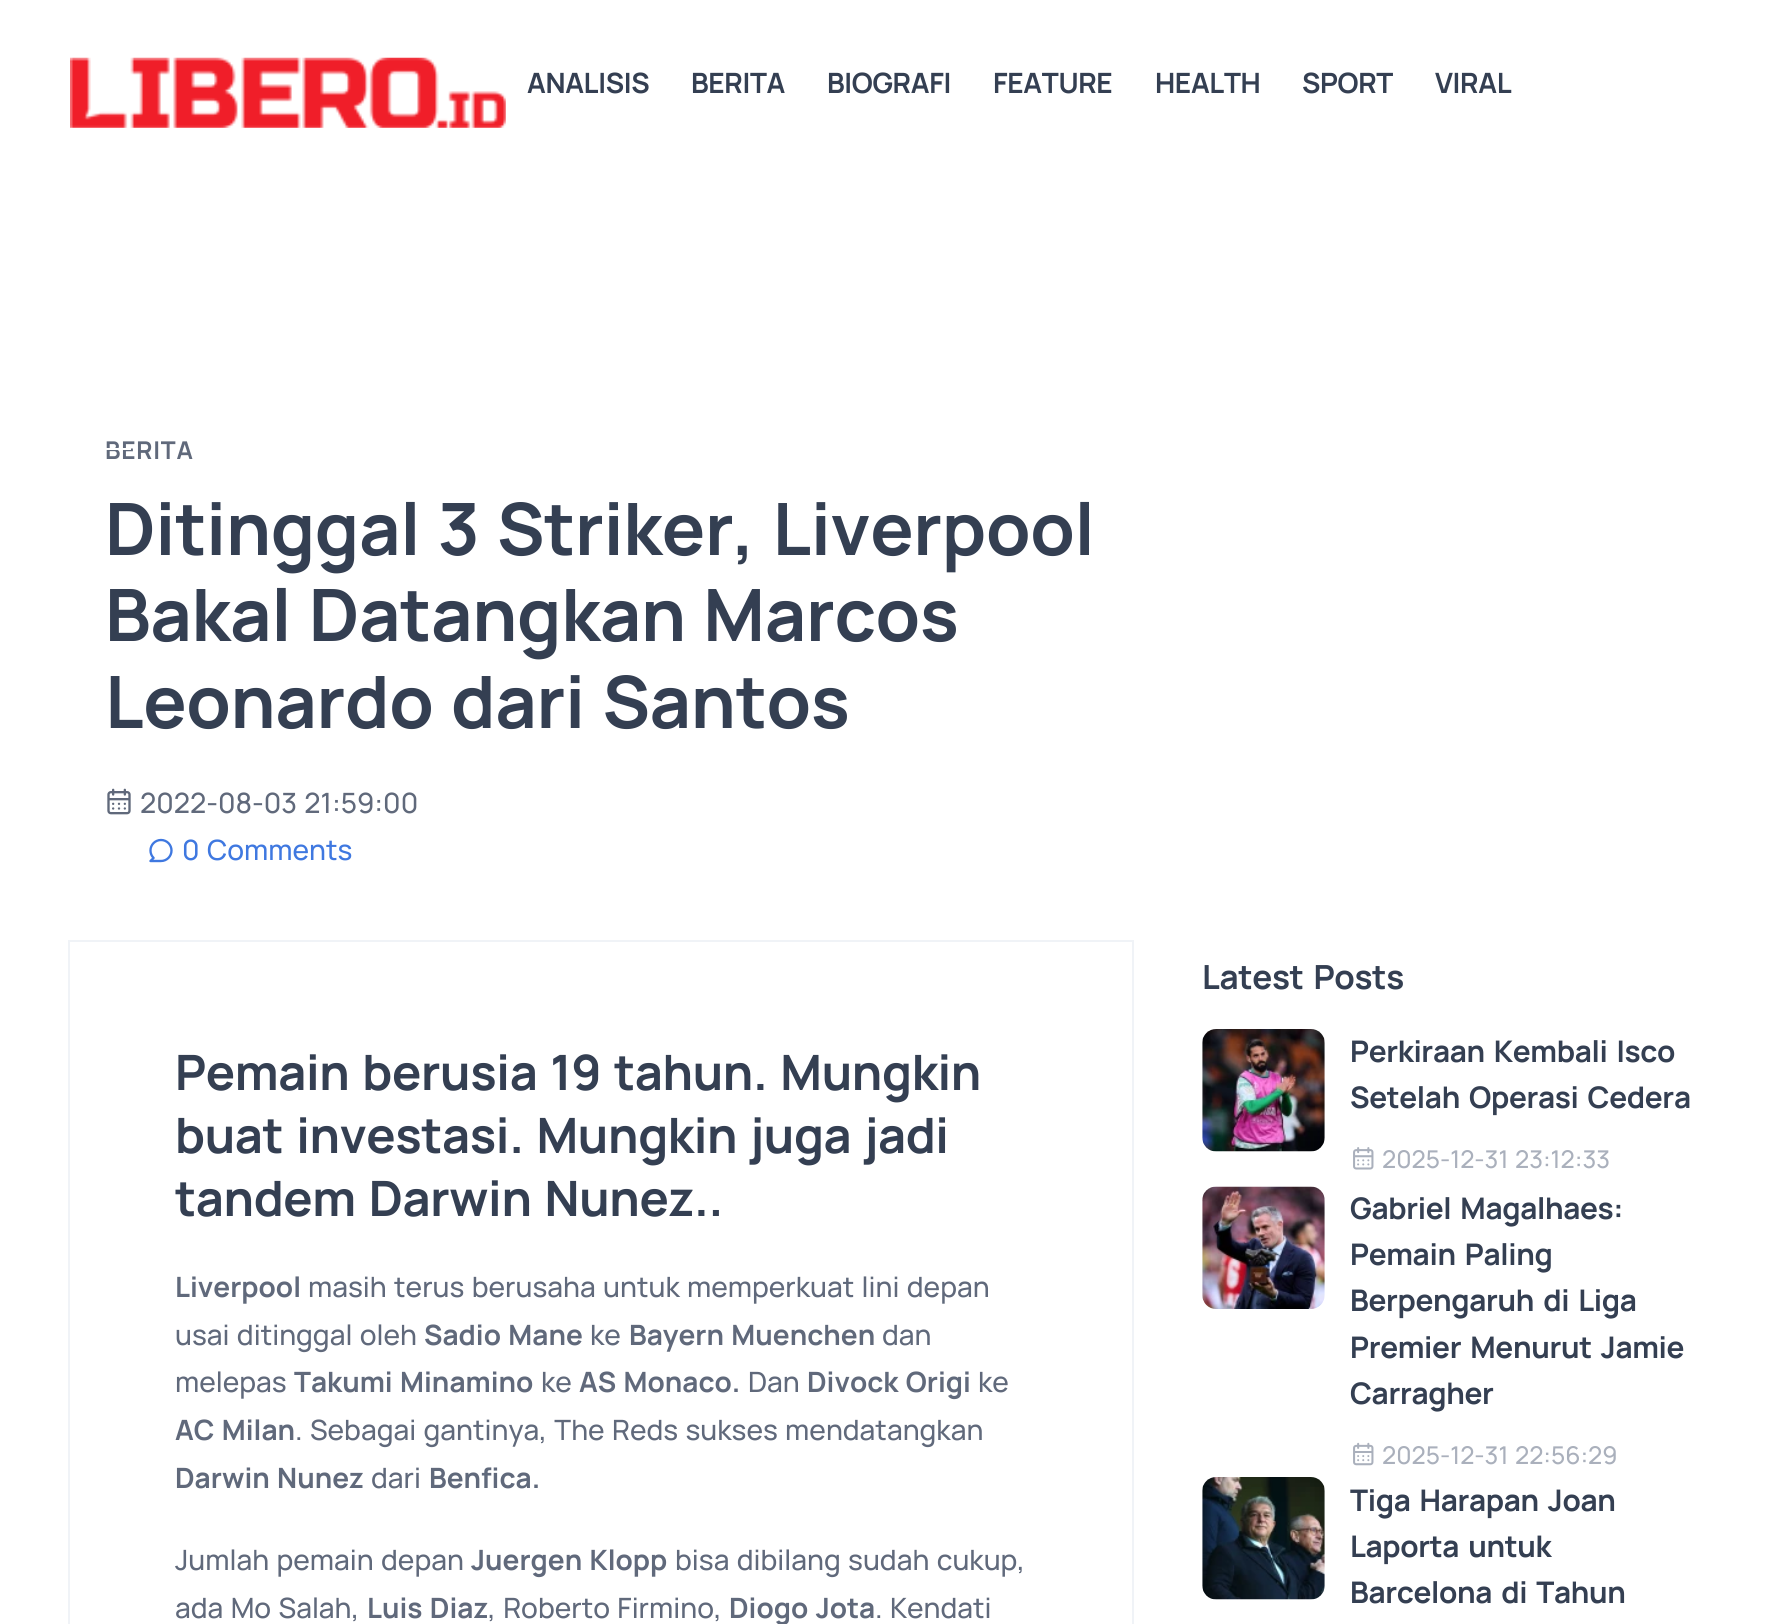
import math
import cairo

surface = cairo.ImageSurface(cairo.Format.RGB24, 1766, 1624)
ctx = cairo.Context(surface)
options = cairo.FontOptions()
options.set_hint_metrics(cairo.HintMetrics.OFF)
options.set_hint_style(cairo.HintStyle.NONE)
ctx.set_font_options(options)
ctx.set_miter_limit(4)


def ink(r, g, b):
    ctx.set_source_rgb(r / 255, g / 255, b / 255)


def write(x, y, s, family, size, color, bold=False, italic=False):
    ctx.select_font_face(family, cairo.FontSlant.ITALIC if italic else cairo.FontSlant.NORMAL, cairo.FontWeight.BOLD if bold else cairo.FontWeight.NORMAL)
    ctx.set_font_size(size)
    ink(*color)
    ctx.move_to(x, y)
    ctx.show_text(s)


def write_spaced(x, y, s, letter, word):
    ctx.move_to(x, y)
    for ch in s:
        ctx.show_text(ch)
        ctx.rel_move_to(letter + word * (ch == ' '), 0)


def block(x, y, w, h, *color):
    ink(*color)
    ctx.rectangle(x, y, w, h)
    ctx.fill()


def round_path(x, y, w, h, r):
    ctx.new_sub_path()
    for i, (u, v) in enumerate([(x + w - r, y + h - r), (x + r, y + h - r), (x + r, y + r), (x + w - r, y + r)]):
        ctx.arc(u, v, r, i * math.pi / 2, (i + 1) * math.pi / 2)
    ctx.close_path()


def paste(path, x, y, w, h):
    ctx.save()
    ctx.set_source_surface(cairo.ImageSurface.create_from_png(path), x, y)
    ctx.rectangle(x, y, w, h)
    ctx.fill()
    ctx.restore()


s1 = dict(family="Manrope Medium", size=28, color=(63, 120, 224))
s2 = dict(family="Manrope", size=28, color=(96, 105, 123), bold=True)
s3 = dict(family="Manrope Medium", size=28, color=(96, 105, 123))

ink(255, 255, 255)
ctx.paint()
paste("pic1.png", 70, 57, 436, 71)
ctx.select_font_face("Manrope", cairo.FontSlant.NORMAL, cairo.FontWeight.BOLD)
ctx.set_font_size(28)
ink(52, 63, 82)
write_spaced(527, 93, "ANALISIS", -0.35, 0)
write_spaced(691, 93, "BERITA", -0.35, 0)
write_spaced(827, 93, "BIOGRAFI", -0.35, 0)
write_spaced(993, 93, "FEATURE", -0.35, 0)
write_spaced(1155, 93, "HEALTH", -0.35, 0)
write_spaced(1302, 93, "SPORT", -0.35, 0)
write_spaced(1435, 93, "VIRAL", -0.35, 0)
ctx.set_font_size(24.5)
ink(96, 105, 123)
write_spaced(105, 459, "BERITA", 0.75, 0)
block(105, 448, 26, 2, 255, 255, 255)
ctx.set_font_size(72.2)
ink(52, 63, 82)
write_spaced(105, 555, "Ditinggal 3 Striker, Liverpool", -0.35, 3.5)
write_spaced(105, 641, "Bakal Datangkan Marcos", -0.35, 3.5)
write_spaced(105, 728, "Leonardo dari Santos", -0.35, 3.5)
paste("pic2.png", 107, 788, 24, 27)
ctx.select_font_face("Manrope Medium")
ctx.set_font_size(28)
ink(96, 105, 123)
write_spaced(140, 813, "2022-08-03 21:59:00", 0, 1.75)
paste("pic3.png", 149, 838, 24, 25)
write(182, 860, "0", **s1)
write(207, 860, "Comments", **s1)
ctx.rectangle(69, 941, 1064, 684)
ctx.set_source_rgba(0.031, 0.235, 0.51, 0.06)
ctx.stroke()
ink(255, 255, 255)
round_path(70, 942, 1062, 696, 14)
ctx.fill()
ctx.select_font_face("Manrope", cairo.FontSlant.NORMAL, cairo.FontWeight.BOLD)
ctx.set_font_size(48.75)
ink(52, 63, 82)
write_spaced(175, 1090, "Pemain berusia 19 tahun. Mungkin", -0.35, 3.5)
write_spaced(175, 1153, "buat investasi. Mungkin juga jadi", -0.35, 3.5)
write_spaced(175, 1216, "tandem Darwin Nunez..", -0.35, 3.5)
write(175, 1297, "Liverpool", **s2)
ctx.select_font_face("Manrope Medium")
write_spaced(308, 1297, "masih terus berusaha untuk memperkuat lini depan", 0, 1.75)
write_spaced(175, 1345, "usai ditinggal oleh", 0, 1.75)
ctx.select_font_face("Manrope", cairo.FontSlant.NORMAL, cairo.FontWeight.BOLD)
write_spaced(424, 1345, "Sadio Mane", 0, 1.75)
write(590, 1345, "ke", **s3)
ctx.select_font_face("Manrope", cairo.FontSlant.NORMAL, cairo.FontWeight.BOLD)
write_spaced(629, 1345, "Bayern Muenchen", 0, 1.75)
write(882, 1345, "dan", **s3)
write(175, 1392, "melepas", **s3)
ctx.select_font_face("Manrope", cairo.FontSlant.NORMAL, cairo.FontWeight.BOLD)
write_spaced(294, 1392, "Takumi Minamino", 0, 1.75)
write(541, 1392, "ke", **s3)
ctx.select_font_face("Manrope", cairo.FontSlant.NORMAL, cairo.FontWeight.BOLD)
write_spaced(579, 1392, "AS Monaco.", 0, 1.75)
write(748, 1392, "Dan", **s3)
ctx.select_font_face("Manrope", cairo.FontSlant.NORMAL, cairo.FontWeight.BOLD)
write_spaced(807, 1392, "Divock Origi", 0, 1.75)
write(978, 1392, "ke", **s3)
ctx.select_font_face("Manrope", cairo.FontSlant.NORMAL, cairo.FontWeight.BOLD)
write_spaced(175, 1440, "AC Milan", 0, 1.75)
ctx.select_font_face("Manrope Medium")
write_spaced(295, 1440, ". Sebagai gantinya, The Reds sukses mendatangkan", 0, 1.75)
ctx.select_font_face("Manrope", cairo.FontSlant.NORMAL, cairo.FontWeight.BOLD)
write_spaced(175, 1488, "Darwin Nunez", 0, 1.75)
write(371, 1488, "dari", **s3)
write(429, 1488, "Benfica.", **s2)
ctx.select_font_face("Manrope Medium")
write_spaced(175, 1570, "Jumlah pemain depan", 0, 1.75)
ctx.select_font_face("Manrope", cairo.FontSlant.NORMAL, cairo.FontWeight.BOLD)
write_spaced(471, 1570, "Juergen Klopp", 0, 1.75)
ctx.select_font_face("Manrope Medium")
write_spaced(675, 1570, "bisa dibilang sudah cukup,", 0, 1.75)
write_spaced(175, 1618, "ada Mo Salah,", 0, 1.75)
ctx.select_font_face("Manrope", cairo.FontSlant.NORMAL, cairo.FontWeight.BOLD)
write_spaced(367, 1618, "Luis Diaz", 0, 1.75)
ctx.select_font_face("Manrope Medium")
write_spaced(488, 1618, ", Roberto Firmino,", 0, 1.75)
ctx.select_font_face("Manrope", cairo.FontSlant.NORMAL, cairo.FontWeight.BOLD)
write_spaced(729, 1618, "Diogo Jota", 0, 1.75)
ctx.select_font_face("Manrope Medium")
write_spaced(875, 1618, ". Kendati", 0, 1.75)
ctx.select_font_face("Manrope", cairo.FontSlant.NORMAL, cairo.FontWeight.BOLD)
ctx.set_font_size(33.25)
ink(52, 63, 82)
write_spaced(1202, 989, "Latest Posts", -0.35, 3.5)
paste("pic4.png", 1202, 1029, 123, 123)
ctx.set_font_size(29.75)
write_spaced(1350, 1062, "Perkiraan Kembali Isco", -0.35, 3.5)
write_spaced(1350, 1108, "Setelah Operasi Cedera", -0.35, 3.5)
paste("pic5.png", 1353, 1147, 21, 23)
ctx.select_font_face("Manrope Medium")
ctx.set_font_size(24.5)
ink(170, 176, 188)
write_spaced(1382, 1168, "2025-12-31 23:12:33", 0, 1.75)
paste("pic6.png", 1202, 1186, 123, 123)
ctx.select_font_face("Manrope", cairo.FontSlant.NORMAL, cairo.FontWeight.BOLD)
ctx.set_font_size(29.75)
ink(52, 63, 82)
write_spaced(1350, 1219, "Gabriel Magalhaes:", -0.35, 3.5)
write_spaced(1350, 1265, "Pemain Paling", -0.35, 3.5)
write_spaced(1350, 1311, "Berpengaruh di Liga", -0.35, 3.5)
write_spaced(1350, 1358, "Premier Menurut Jamie", -0.35, 3.5)
write_spaced(1350, 1404, "Carragher", -0.35, 0)
paste("pic7.png", 1353, 1442, 21, 24)
ctx.select_font_face("Manrope Medium")
ctx.set_font_size(24.5)
ink(170, 176, 188)
write_spaced(1382, 1464, "2025-12-31 22:56:29", 0, 1.75)
paste("pic8.png", 1202, 1477, 123, 123)
ctx.select_font_face("Manrope", cairo.FontSlant.NORMAL, cairo.FontWeight.BOLD)
ctx.set_font_size(29.75)
ink(52, 63, 82)
write_spaced(1350, 1511, "Tiga Harapan Joan", -0.35, 3.5)
write_spaced(1350, 1557, "Laporta untuk", -0.35, 3.5)
write_spaced(1350, 1603, "Barcelona di Tahun", -0.35, 3.5)
surface.write_to_png("screenshot.png")
